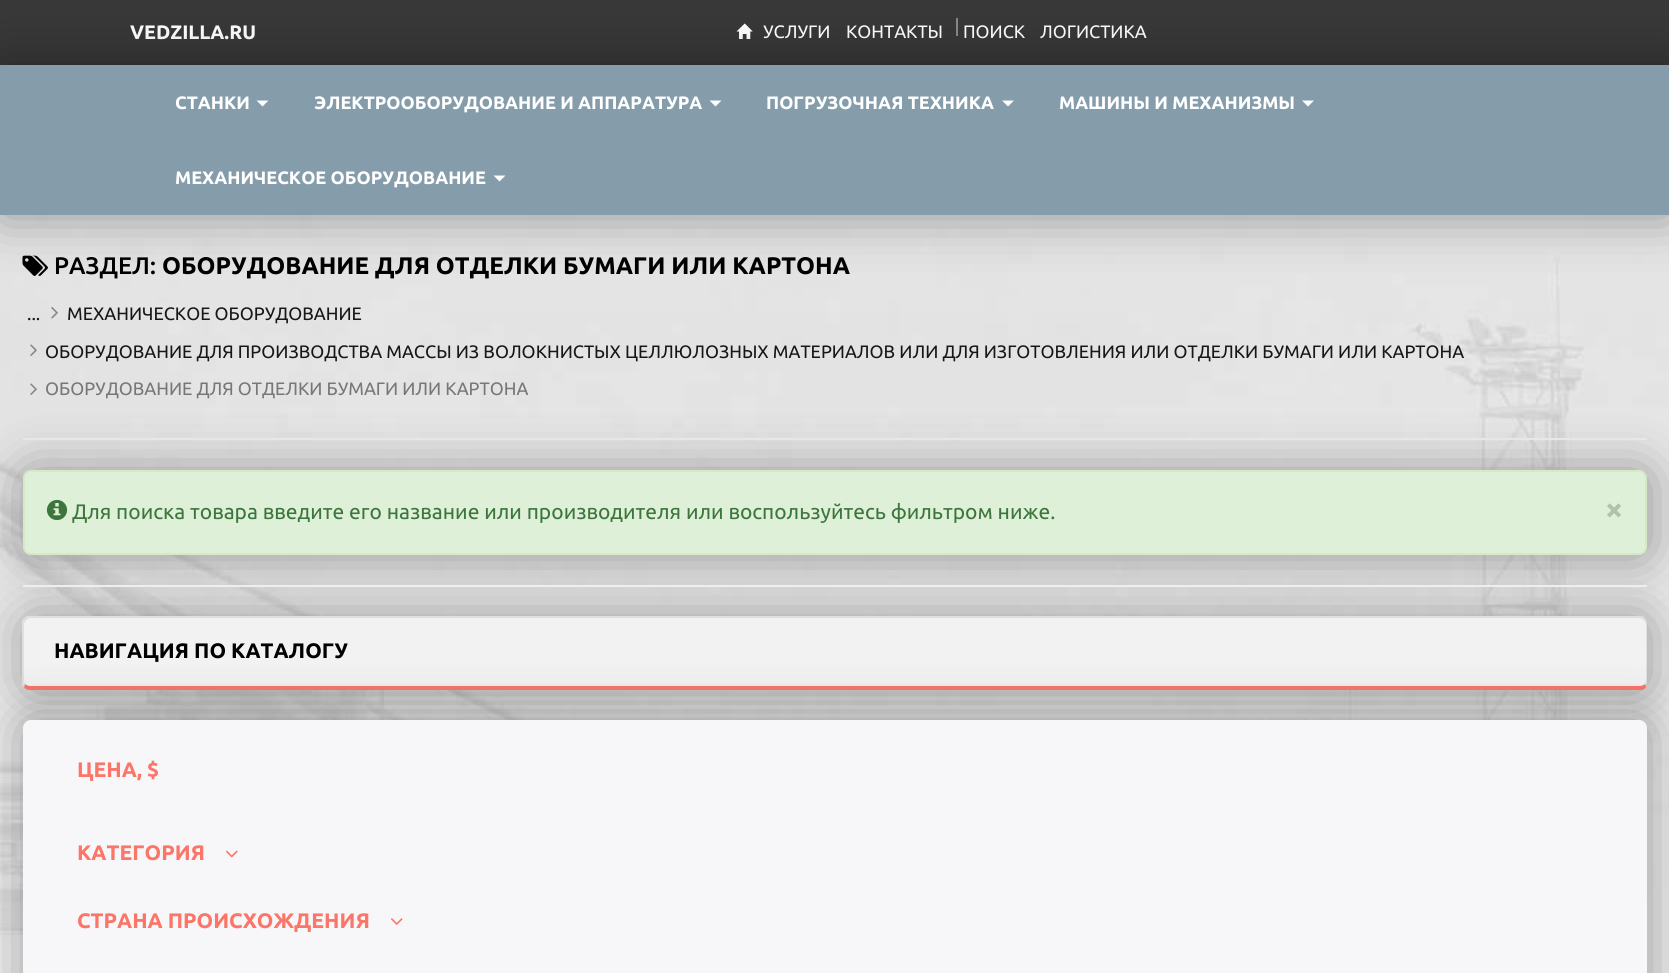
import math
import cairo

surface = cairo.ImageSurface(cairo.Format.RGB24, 1669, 973)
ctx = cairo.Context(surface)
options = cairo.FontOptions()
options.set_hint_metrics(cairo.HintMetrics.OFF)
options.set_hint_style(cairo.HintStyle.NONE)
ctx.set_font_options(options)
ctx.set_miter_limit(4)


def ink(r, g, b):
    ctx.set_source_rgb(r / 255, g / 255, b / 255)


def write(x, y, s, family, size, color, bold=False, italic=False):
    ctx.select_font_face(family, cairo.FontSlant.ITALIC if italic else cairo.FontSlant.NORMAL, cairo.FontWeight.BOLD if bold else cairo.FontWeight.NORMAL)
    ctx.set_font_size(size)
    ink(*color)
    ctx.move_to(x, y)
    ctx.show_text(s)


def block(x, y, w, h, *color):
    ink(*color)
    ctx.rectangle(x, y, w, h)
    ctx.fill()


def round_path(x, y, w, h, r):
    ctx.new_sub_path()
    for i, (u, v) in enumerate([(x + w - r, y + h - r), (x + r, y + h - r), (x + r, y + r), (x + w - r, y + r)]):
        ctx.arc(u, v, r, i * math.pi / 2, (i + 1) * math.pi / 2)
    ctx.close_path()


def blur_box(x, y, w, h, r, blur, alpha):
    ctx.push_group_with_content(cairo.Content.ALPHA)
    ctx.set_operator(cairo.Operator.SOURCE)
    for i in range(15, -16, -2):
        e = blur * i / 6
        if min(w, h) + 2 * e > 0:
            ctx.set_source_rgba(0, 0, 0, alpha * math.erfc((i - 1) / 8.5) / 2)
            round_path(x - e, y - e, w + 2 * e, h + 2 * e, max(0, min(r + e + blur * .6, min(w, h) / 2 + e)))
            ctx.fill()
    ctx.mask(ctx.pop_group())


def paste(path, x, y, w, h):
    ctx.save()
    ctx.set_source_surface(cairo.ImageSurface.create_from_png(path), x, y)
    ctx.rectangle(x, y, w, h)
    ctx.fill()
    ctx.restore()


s1 = dict(family="Ubuntu", size=19.5, color=(255, 255, 255), bold=True)
s2 = dict(family="Ubuntu", size=18, color=(255, 255, 255))
s3 = dict(family="Ubuntu", size=18, color=(255, 255, 255), bold=True)
s4 = dict(family="Ubuntu Medium", size=24, color=(0, 0, 0))
s5 = dict(family="Ubuntu", size=24, color=(0, 0, 0), bold=True)
s6 = dict(family="Ubuntu", size=18, color=(21, 23, 25))
s7 = dict(family="Ubuntu", size=18, color=(119, 119, 119))
s8 = dict(family="Ubuntu", size=21, color=(60, 118, 61))
s9 = dict(family="Ubuntu", size=32, color=(178, 192, 173), bold=True)
s10 = dict(family="Ubuntu", size=21, color=(0, 0, 0), bold=True)
s11 = dict(family="Ubuntu", size=21, color=(251, 117, 104), bold=True)

ink(56, 56, 56)
ctx.paint()
write(130, 39, "VEDZILLA.RU", **s1)
paste("pic1.png", 736, 23, 17, 16)
write(763, 38, "УСЛУГИ", **s2)
write(846, 38, "КОНТАКТЫ", **s2)
block(956, 18, 2, 18, 136, 136, 136)
write(963, 38, "ПОИСК", **s2)
write(1040, 38, "ЛОГИСТИКА", **s2)
paste("pic2.png", 0, 215, 1669, 758)
ink(0, 0, 0)
blur_box(2, 66, 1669, 150, 0, 26, 0.35)
block(0, 65, 1669, 150, 133, 157, 171)
write(175, 109, "СТАНКИ", **s3)
ctx.new_path()
ctx.move_to(256.5, 100.5)
ctx.line_to(268.5, 100.5)
ctx.line_to(262.5, 106.5)
ctx.close_path()
ctx.fill()
write(314, 109, "ЭЛЕКТРООБОРУДОВАНИЕ И АППАРАТУРА", **s3)
ctx.new_path()
ctx.move_to(709.5, 100.5)
ctx.line_to(721.5, 100.5)
ctx.line_to(715.5, 106.5)
ctx.close_path()
ctx.fill()
write(766, 109, "ПОГРУЗОЧНАЯ ТЕХНИКА", **s3)
ctx.new_path()
ctx.move_to(1002, 100.5)
ctx.line_to(1014, 100.5)
ctx.line_to(1008, 106.5)
ctx.close_path()
ctx.fill()
write(1059, 109, "МАШИНЫ И МЕХАНИЗМЫ", **s3)
ctx.new_path()
ctx.move_to(1302, 100.5)
ctx.line_to(1314, 100.5)
ctx.line_to(1308, 106.5)
ctx.close_path()
ctx.fill()
write(175, 184, "МЕХАНИЧЕСКОЕ ОБОРУДОВАНИЕ", **s3)
ctx.new_path()
ctx.move_to(493.5, 175.5)
ctx.line_to(505.5, 175.5)
ctx.line_to(499.5, 181.5)
ctx.close_path()
ctx.fill()
paste("pic3.png", 22, 255, 26, 21)
write(54, 274, "РАЗДЕЛ:", **s4)
write(162, 274, "ОБОРУДОВАНИЕ ДЛЯ ОТДЕЛКИ БУМАГИ ИЛИ КАРТОНА", **s5)
write(27, 320, "...", **s6)
paste("pic4.png", 51, 307, 7, 12)
write(67, 320, "МЕХАНИЧЕСКОЕ ОБОРУДОВАНИЕ", **s6)
paste("pic5.png", 30, 344, 7, 12)
write(45, 358, "ОБОРУДОВАНИЕ ДЛЯ ПРОИЗВОДСТВА МАССЫ ИЗ ВОЛОКНИСТЫХ ЦЕЛЛЮЛОЗНЫХ МАТЕРИАЛОВ ИЛИ ДЛЯ ИЗГОТОВЛЕНИЯ ИЛИ ОТДЕЛКИ БУМАГИ ИЛИ КАРТОНА", **s6)
paste("pic6.png", 30, 383, 7, 12)
write(45, 395, "ОБОРУДОВАНИЕ ДЛЯ ОТДЕЛКИ БУМАГИ ИЛИ КАРТОНА", **s7)
block(23, 438, 1624, 2, 238, 238, 238)
ink(0, 0, 0)
blur_box(24, 471, 1625, 86, 8, 26, 0.35)
ink(223, 240, 216)
round_path(24, 471, 1622, 83, 7)
ctx.fill_preserve()
ink(214, 233, 198)
ctx.stroke()
paste("pic7.png", 46, 499, 22, 22)
write(72, 519, "Для поиска товара введите его название или производителя или воспользуйтесь фильтром ниже.", **s8)
write(1605, 520, "×", **s9)
ink(0, 0, 0)
blur_box(24, 618, 1625, 74, 8, 26, 0.35)
block(23, 585, 1624, 2, 238, 238, 238)
ink(242, 242, 242)
ctx.new_path()
ctx.move_to(30, 618)
ctx.line_to(1640, 618)
ctx.curve_to(1643, 618, 1646, 621, 1646, 624)
ctx.line_to(1646, 682)
ctx.curve_to(1646, 684, 1643, 686, 1640, 686)
ctx.line_to(30, 686)
ctx.curve_to(27, 686, 24, 684, 24, 682)
ctx.line_to(24, 624)
ctx.curve_to(24, 621, 27, 618, 30, 618)
ctx.close_path()
ctx.fill()
ink(224, 223, 223)
ctx.new_path()
ctx.move_to(30, 618)
ctx.curve_to(28, 618, 27, 619, 26, 620)
ctx.line_to(24, 618)
ctx.line_to(27, 616)
ctx.line_to(1642, 616)
ctx.line_to(1645, 618)
ctx.line_to(1644, 620)
ctx.curve_to(1643, 619, 1641, 618, 1640, 618)
ctx.close_path()
ctx.fill()
ctx.new_path()
ctx.move_to(1647, 682)
ctx.line_to(1647, 624)
ctx.curve_to(1647, 622, 1646, 620, 1645, 618)
ctx.line_to(1644, 620)
ctx.curve_to(1645, 621, 1646, 622, 1646, 623)
ctx.line_to(1646, 682)
ctx.line_to(1645, 684)
ctx.line_to(1646, 687)
ctx.close_path()
ctx.fill()
ink(251, 117, 104)
ctx.new_path()
ctx.move_to(30, 690)
ctx.line_to(1640, 690)
ctx.curve_to(1643, 690, 1645, 689, 1646, 687)
ctx.line_to(1645, 684)
ctx.curve_to(1644, 685, 1642, 686, 1640, 686)
ctx.line_to(30, 686)
ctx.curve_to(28, 686, 26, 685, 25, 684)
ctx.line_to(24, 687)
ctx.curve_to(25, 689, 28, 690, 30, 690)
ctx.close_path()
ctx.fill()
ink(224, 223, 223)
ctx.new_path()
ctx.move_to(22, 621)
ctx.line_to(24, 618)
ctx.line_to(26, 620)
ctx.line_to(24, 623)
ctx.line_to(24, 682)
ctx.line_to(25, 684)
ctx.line_to(24, 687)
ctx.line_to(22, 685)
ctx.close_path()
ctx.fill()
ink(0, 0, 0)
blur_box(24, 722, 1625, 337, 8, 26, 0.35)
write(54, 658, "НАВИГАЦИЯ ПО КАТАЛОГУ", **s10)
ink(247, 246, 248)
round_path(23, 720, 1624, 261, 8)
ctx.fill()
write(77, 777, "ЦЕНА, $", **s11)
write(77, 860, "КАТЕГОРИЯ", **s11)
paste("pic8.png", 226, 850, 12, 8)
write(77, 928, "СТРАНА ПРОИСХОЖДЕНИЯ", **s11)
paste("pic9.png", 391, 918, 12, 7)
surface.write_to_png("screenshot.png")
